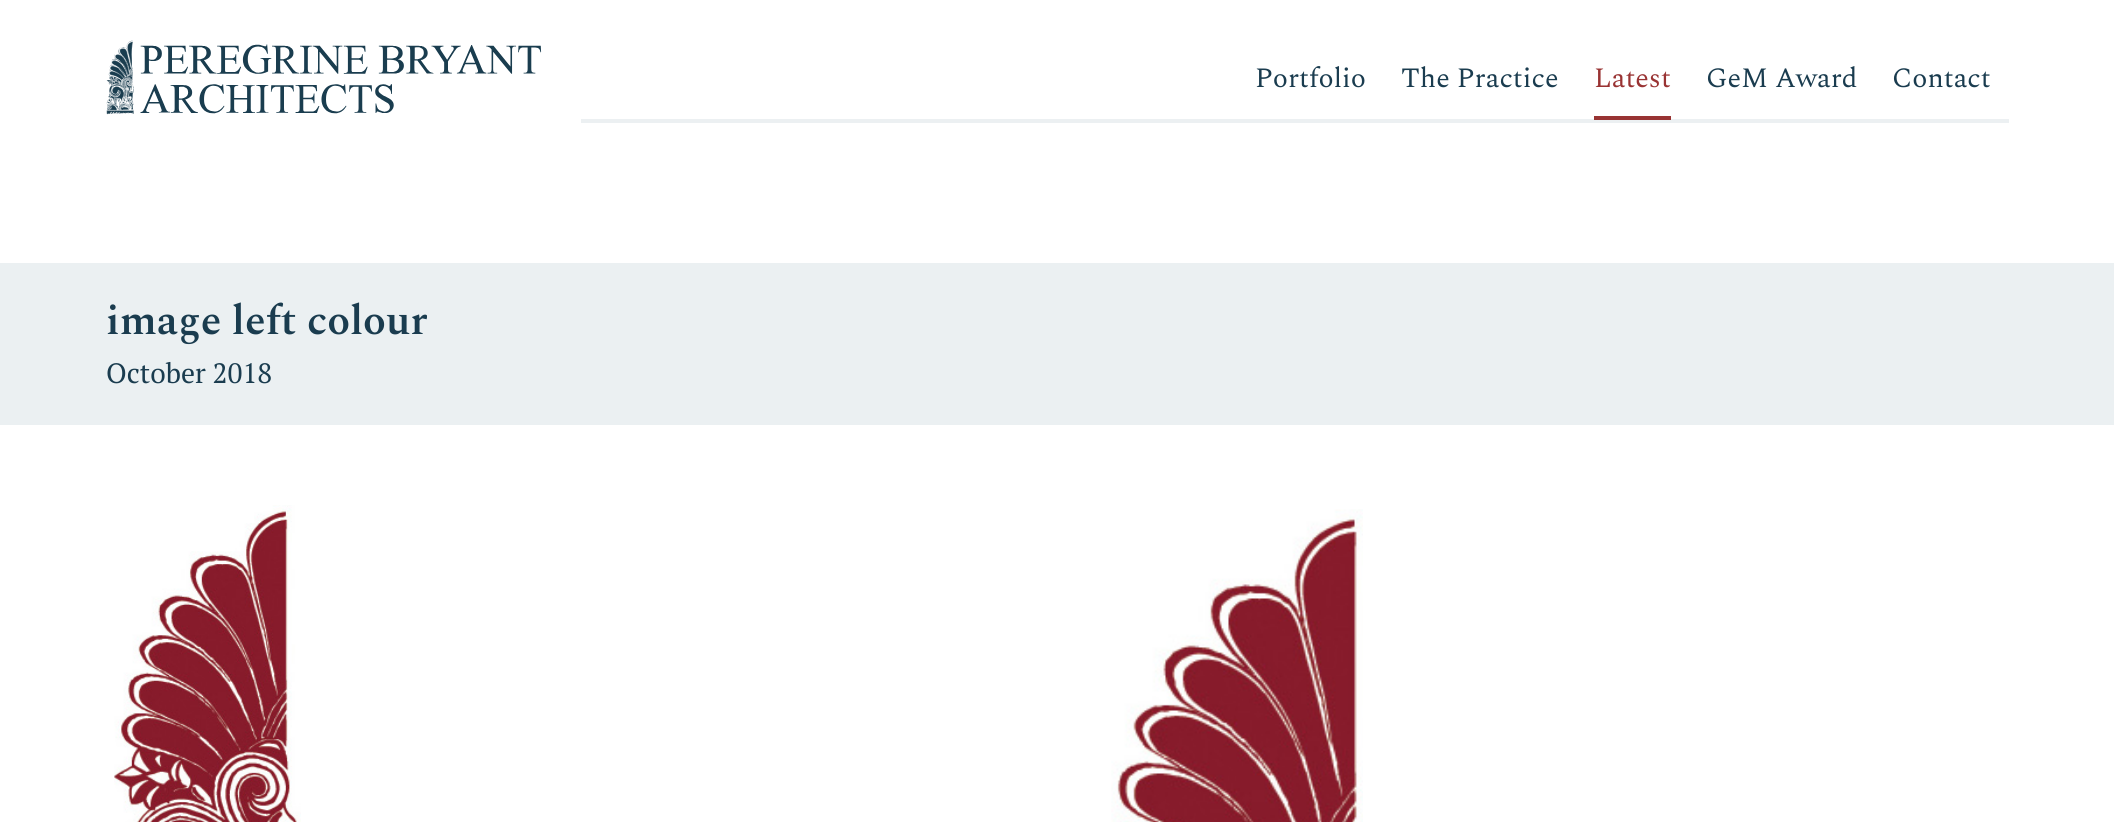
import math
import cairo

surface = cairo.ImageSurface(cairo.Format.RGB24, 2114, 822)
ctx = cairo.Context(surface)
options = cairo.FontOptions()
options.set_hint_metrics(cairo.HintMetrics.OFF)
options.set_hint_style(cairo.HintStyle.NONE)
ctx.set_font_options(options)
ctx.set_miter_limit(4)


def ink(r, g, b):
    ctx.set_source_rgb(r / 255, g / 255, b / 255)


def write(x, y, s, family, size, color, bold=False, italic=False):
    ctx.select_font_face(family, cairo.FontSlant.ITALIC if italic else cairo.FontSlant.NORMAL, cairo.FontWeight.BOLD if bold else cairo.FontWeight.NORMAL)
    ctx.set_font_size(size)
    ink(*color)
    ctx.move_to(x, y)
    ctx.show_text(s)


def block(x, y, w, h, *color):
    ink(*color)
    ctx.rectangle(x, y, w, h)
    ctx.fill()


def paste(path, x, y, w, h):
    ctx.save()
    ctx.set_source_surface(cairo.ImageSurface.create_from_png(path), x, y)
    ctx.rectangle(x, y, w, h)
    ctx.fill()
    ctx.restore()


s1 = dict(family="Spectral", size=28, color=(26, 60, 79))
s2 = dict(family="Spectral", size=28, color=(153, 51, 51))
s3 = dict(family="Spectral SemiBold", size=42, color=(26, 60, 79))
s4 = dict(family="PT Serif", size=28, color=(26, 60, 79))

ink(255, 255, 255)
ctx.paint()
paste("pic1.png", 106, 40, 436, 75)
block(581, 119, 1428, 4, 236, 240, 242)
write(1255, 87, "Portfolio", **s1)
write(1401, 87, "The Practice", **s1)
write(1594, 87, "Latest", **s2)
block(1594, 116, 77, 4, 152, 51, 51)
write(1706, 87, "GeM Award", **s1)
write(1892, 87, "Contact", **s1)
block(0, 263, 2114, 162, 235, 240, 242)
write(106, 334, "image left colour", **s3)
write(106, 383, "October 2018", **s4)
paste("pic2.png", 114, 505, 187, 317)
paste("pic3.png", 1111, 509, 252, 313)
surface.write_to_png("screenshot.png")
